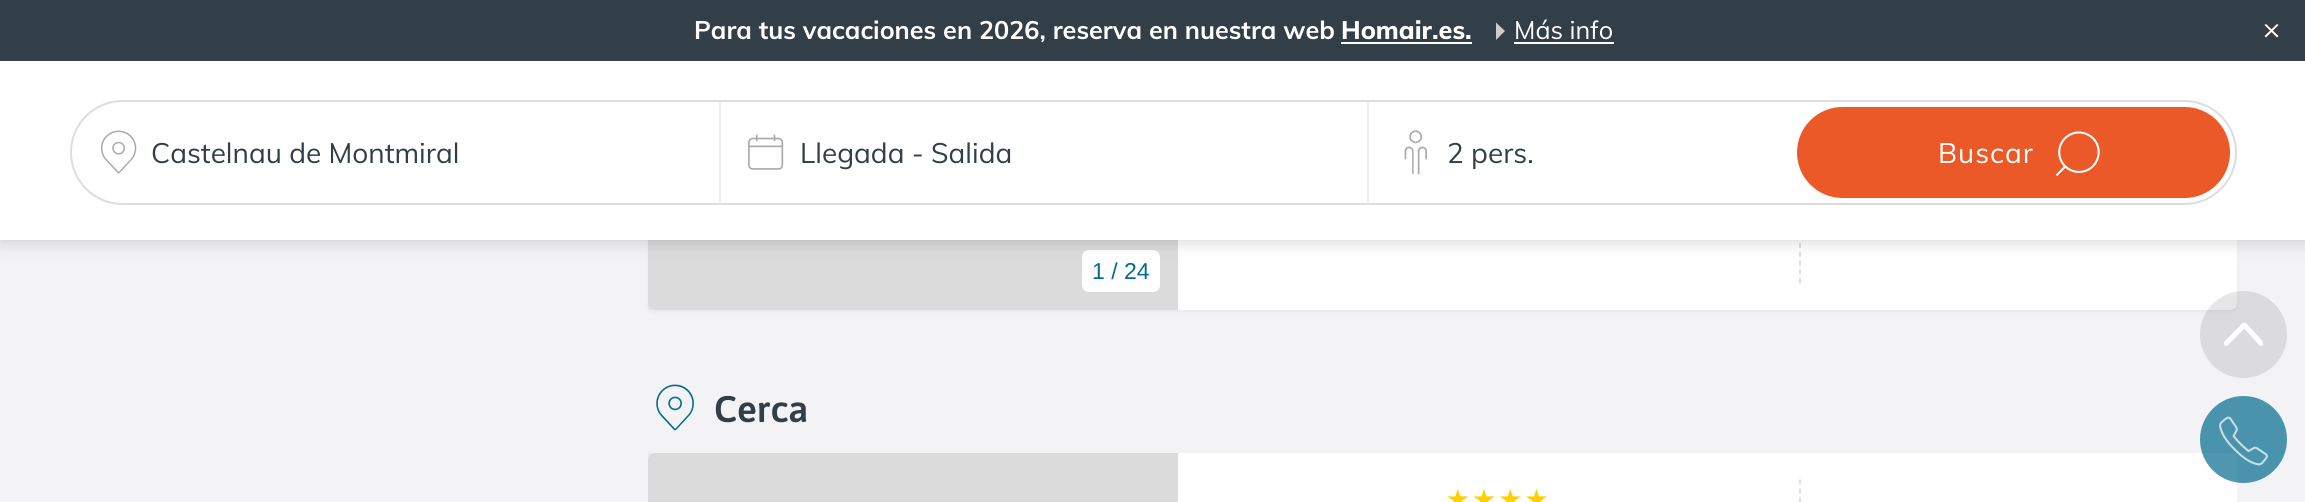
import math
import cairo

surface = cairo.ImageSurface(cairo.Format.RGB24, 2305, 502)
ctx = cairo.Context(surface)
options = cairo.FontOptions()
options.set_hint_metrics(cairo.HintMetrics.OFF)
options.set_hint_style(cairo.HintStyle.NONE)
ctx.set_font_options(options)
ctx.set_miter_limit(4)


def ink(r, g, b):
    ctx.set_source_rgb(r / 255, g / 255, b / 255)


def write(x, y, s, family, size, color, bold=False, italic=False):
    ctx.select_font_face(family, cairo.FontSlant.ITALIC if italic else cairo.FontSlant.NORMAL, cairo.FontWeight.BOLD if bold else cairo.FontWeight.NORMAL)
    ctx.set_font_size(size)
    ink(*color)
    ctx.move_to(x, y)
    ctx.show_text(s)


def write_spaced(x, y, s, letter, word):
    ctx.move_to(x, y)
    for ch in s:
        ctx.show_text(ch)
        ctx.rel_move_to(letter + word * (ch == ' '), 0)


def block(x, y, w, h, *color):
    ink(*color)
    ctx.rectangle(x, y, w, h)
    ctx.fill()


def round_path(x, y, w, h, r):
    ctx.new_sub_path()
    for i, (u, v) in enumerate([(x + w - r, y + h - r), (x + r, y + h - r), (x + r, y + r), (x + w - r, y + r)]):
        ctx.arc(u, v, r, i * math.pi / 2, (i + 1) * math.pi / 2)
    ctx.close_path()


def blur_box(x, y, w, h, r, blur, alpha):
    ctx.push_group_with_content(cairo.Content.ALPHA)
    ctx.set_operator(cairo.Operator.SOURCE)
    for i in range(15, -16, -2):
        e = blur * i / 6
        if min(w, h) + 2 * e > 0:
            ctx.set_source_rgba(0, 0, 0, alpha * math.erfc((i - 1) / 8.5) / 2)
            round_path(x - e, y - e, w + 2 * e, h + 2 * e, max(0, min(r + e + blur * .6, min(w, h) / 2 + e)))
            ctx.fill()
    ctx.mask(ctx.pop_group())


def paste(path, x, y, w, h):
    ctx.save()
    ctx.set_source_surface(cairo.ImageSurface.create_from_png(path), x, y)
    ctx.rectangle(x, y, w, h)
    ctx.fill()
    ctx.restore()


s1 = dict(family="Mulish", size=25.2, color=(255, 255, 255), bold=True)
s2 = dict(family="Mulish ExtraBold", size=25.2, color=(255, 255, 255))
s3 = dict(family="Mulish", size=25.2, color=(255, 255, 255))
s4 = dict(family="Mulish", size=28, color=(50, 62, 72))
s5 = dict(family="Liberation Sans", size=23, color=(3, 107, 141))
s6 = dict(family="Asap SemiBold", size=37, color=(50, 62, 72))

ink(243, 243, 245)
ctx.paint()
ink(0, 0, 0)
blur_box(648, -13, 1589, 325, 7, 2, 0.05)
ink(255, 255, 255)
round_path(648, -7, 1589, 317, 7)
ctx.fill()
ink(230, 230, 230)
ctx.new_path()
ctx.move_to(655, -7)
ctx.line_to(1178, -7)
ctx.line_to(1178, 310)
ctx.line_to(655, 310)
ctx.curve_to(651, 310, 648, 307, 648, 303)
ctx.line_to(648, 0)
ctx.curve_to(648, -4, 651, -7, 655, -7)
ctx.close_path()
ctx.fill()
ctx.set_source_rgba(0, 0, 0, 0.05)
ctx.rectangle(648, 240, 530, 70)
ctx.fill()
ink(255, 255, 255)
round_path(1082, 250, 78, 42, 7)
ctx.fill()
ctx.new_path()
ctx.move_to(1800, -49)
ctx.line_to(1800, 283.5)
ink(221, 221, 221)
ctx.set_line_width(1.8)
ctx.set_dash([5.25, 3.59])
ctx.stroke()
ink(0, 0, 0)
blur_box(0, -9, 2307, 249, 0, 9, 0.2)
block(0, 0, 2305, 61, 50, 62, 72)
write(694, 39, "Para tus vacaciones en 2026, reserva en nuestra web", **s1)
write(1341, 39, "Homair.es.", **s2)
block(1341, 42, 131, 2, 255, 255, 255)
ink(204, 204, 204)
ctx.new_path()
ctx.move_to(1496, 40)
ctx.line_to(1496, 22.5)
ctx.line_to(1505, 31)
ctx.close_path()
ctx.fill()
write(1514, 39, "Más info", **s3)
block(1514, 42, 100, 2, 255, 255, 255)
ctx.new_path()
ctx.move_to(2264.5, 25)
ctx.line_to(2266, 24)
ctx.line_to(2278.5, 36)
ctx.line_to(2277, 37.5)
ctx.close_path()
ctx.fill()
ctx.new_path()
ctx.move_to(2277, 24)
ctx.line_to(2278.5, 25)
ctx.line_to(2266, 37.5)
ctx.line_to(2264.5, 36)
ctx.close_path()
ctx.fill()
block(0, 61, 2305, 179, 255, 255, 255)
round_path(71, 101, 2165, 103, 51.5)
ink(221, 221, 221)
ctx.set_line_width(2)
ctx.set_dash([])
ctx.stroke()
paste("pic1.png", 101, 130, 36, 44)
write(151, 163, "Castelnau de Montmiral", **s4)
block(719, 102, 2, 101, 238, 238, 238)
paste("pic2.png", 748, 134, 36, 36)
write(800, 163, "Llegada - Salida", **s4)
block(1367, 102, 2, 101, 238, 238, 238)
paste("pic3.png", 1404, 130, 23, 45)
write(1447, 163, "2 pers.", **s4)
ink(234, 89, 39)
round_path(1797, 107, 433, 91, 45.5)
ctx.fill()
ink(255, 255, 255)
write_spaced(1938, 163, "Buscar", 1, 0)
paste("pic4.png", 2055, 131, 45, 45)
write(1092, 279, "1 / 24", **s5)
paste("pic5.png", 656, 384, 38, 47)
write(714, 422, "Cerca", **s6)
ink(255, 255, 255)
round_path(648, 453, 1589, 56, 7)
ctx.fill()
ink(230, 230, 230)
ctx.new_path()
ctx.move_to(655, 453)
ctx.line_to(1178, 453)
ctx.line_to(1178, 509)
ctx.line_to(655, 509)
ctx.curve_to(651, 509, 648, 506, 648, 502)
ctx.line_to(648, 460)
ctx.curve_to(648, 456, 651, 453, 655, 453)
ctx.close_path()
ctx.fill()
ctx.set_source_rgba(0, 0, 0, 0.05)
ctx.rectangle(648, 453, 530, 49)
ctx.fill()
paste("pic6.png", 1447, 489, 21, 13)
paste("pic7.png", 1474, 489, 21, 13)
paste("pic8.png", 1500, 489, 21, 13)
paste("pic9.png", 1526, 489, 21, 13)
ctx.new_path()
ctx.move_to(1800, 479.5)
ctx.line_to(1800, 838)
ink(221, 221, 221)
ctx.set_line_width(1.8)
ctx.set_dash([5.25, 3.59])
ctx.stroke()
ctx.set_source_rgba(0, 0, 0, 0.1)
ctx.arc(2243.5, 334.5, 43.5, 0, 2 * math.pi)
ctx.fill()
paste("pic10.png", 2224, 322, 39, 24)
ctx.set_source_rgba(0.012, 0.42, 0.553, 0.7)
ctx.arc(2243.5, 439.5, 43.5, 0, 2 * math.pi)
ctx.fill()
paste("pic11.png", 2219, 416, 49, 50)
surface.write_to_png("screenshot.png")
